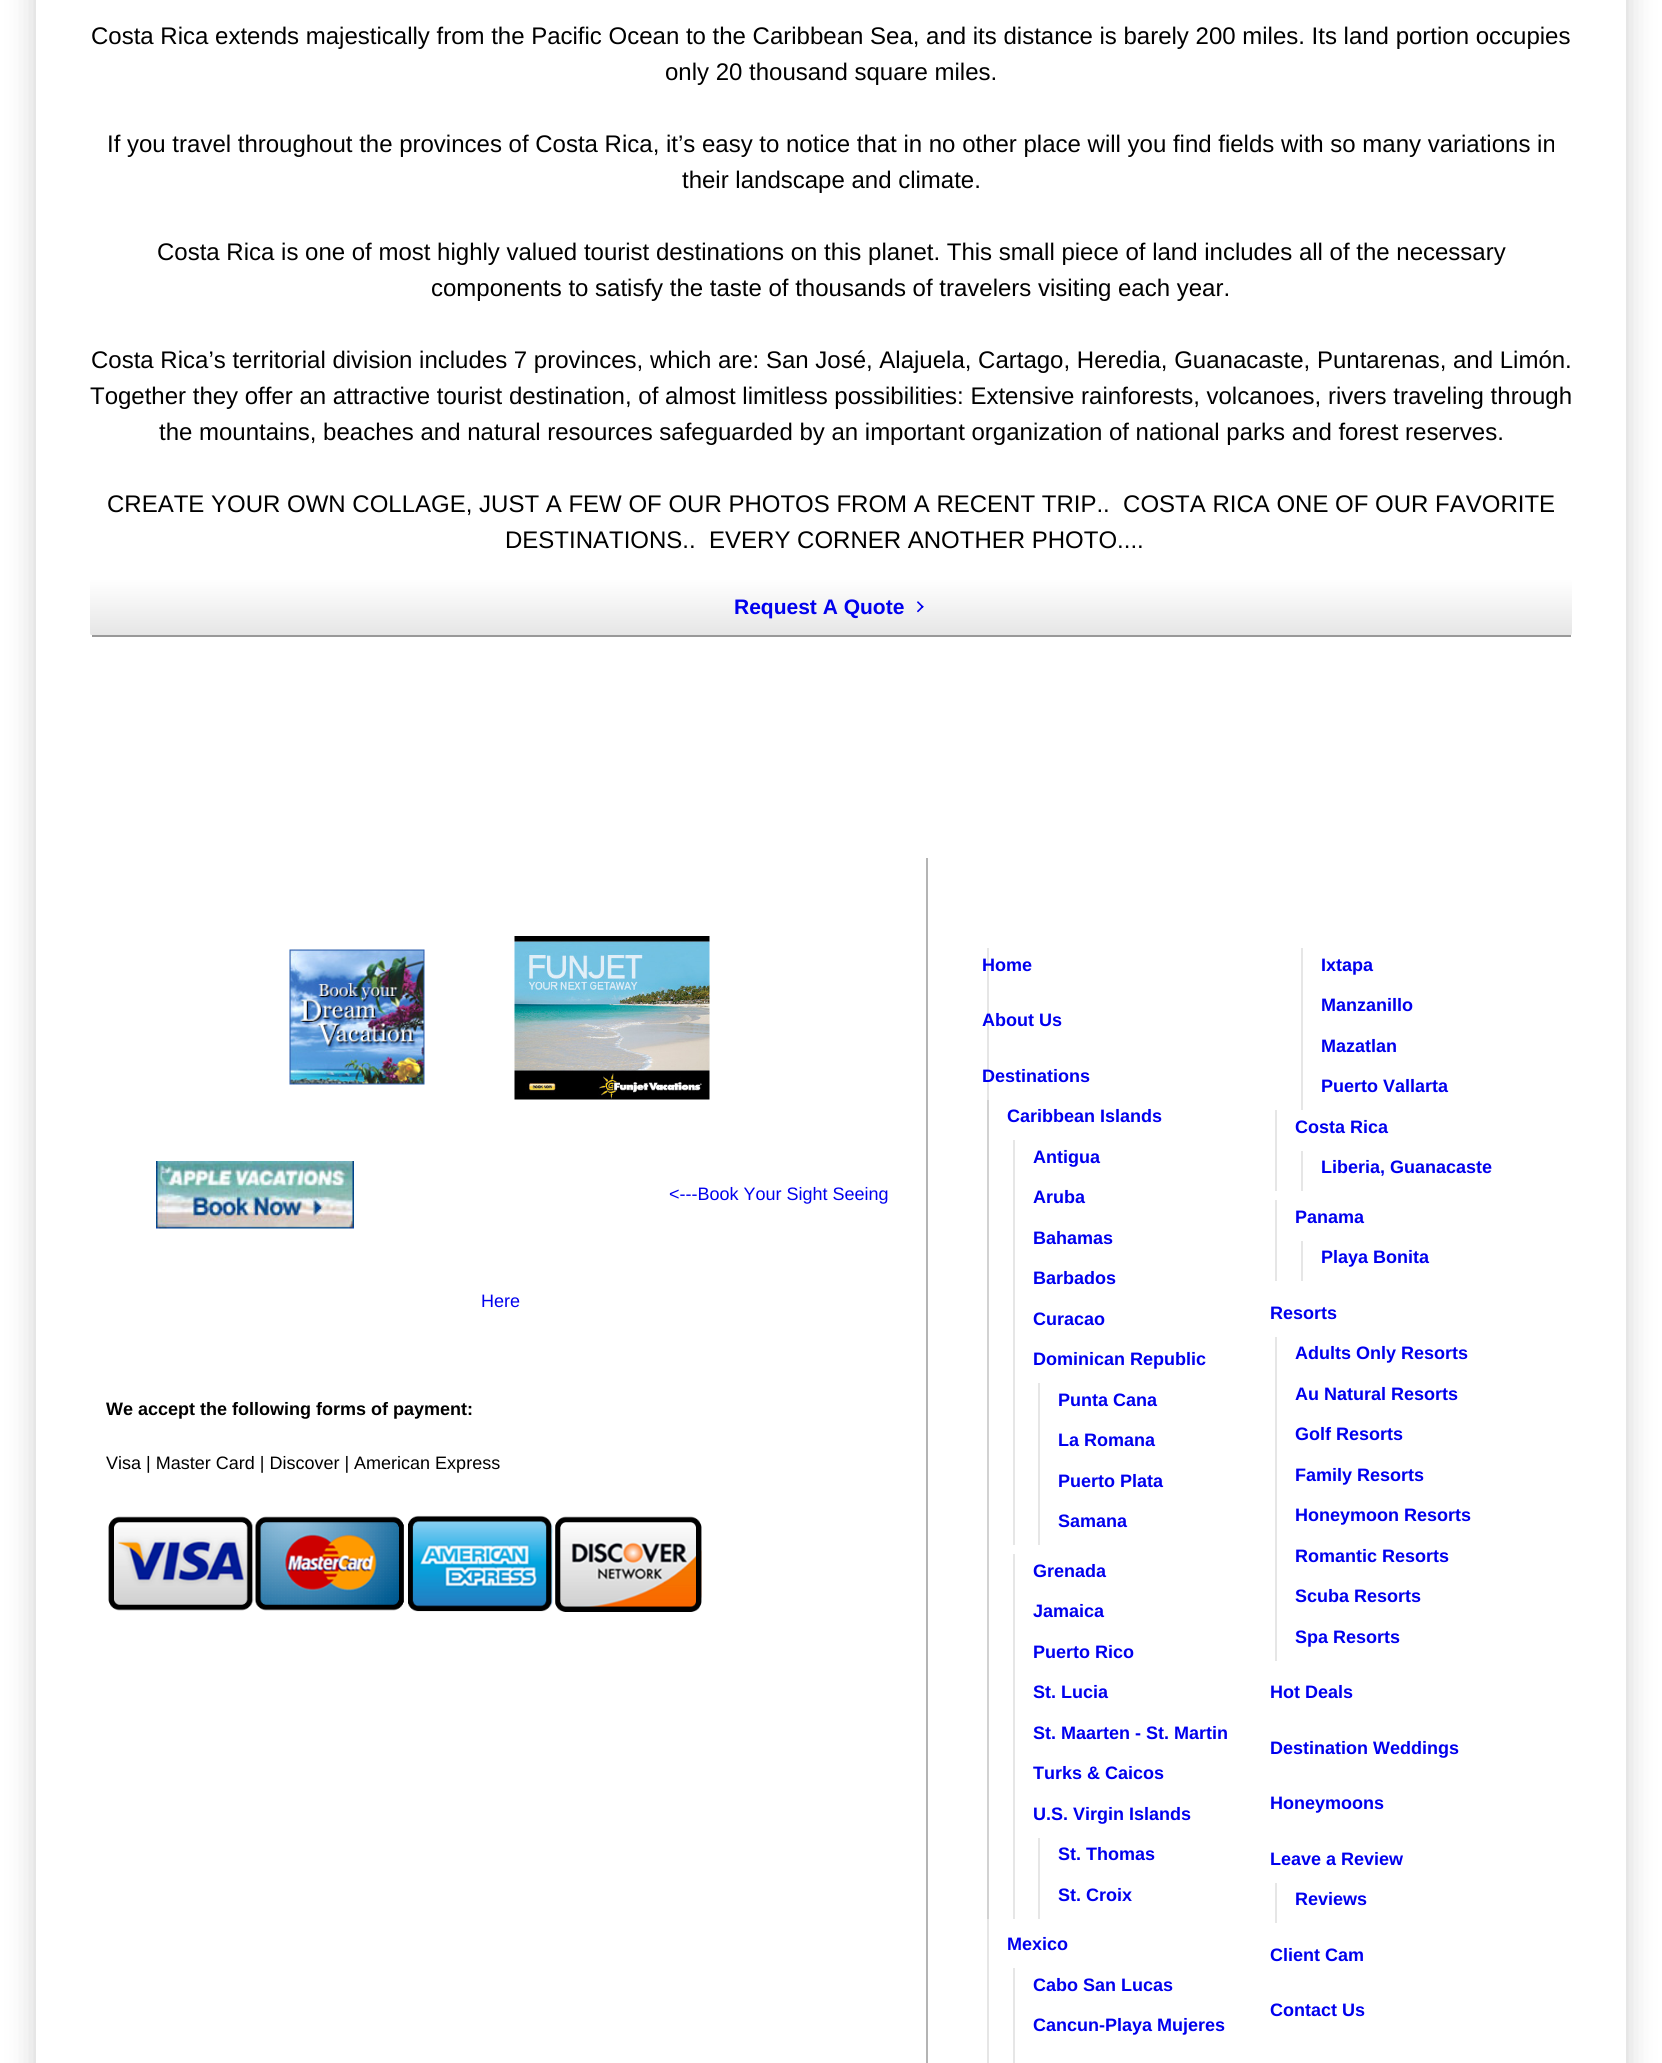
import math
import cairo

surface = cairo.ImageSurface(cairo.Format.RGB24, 1662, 2063)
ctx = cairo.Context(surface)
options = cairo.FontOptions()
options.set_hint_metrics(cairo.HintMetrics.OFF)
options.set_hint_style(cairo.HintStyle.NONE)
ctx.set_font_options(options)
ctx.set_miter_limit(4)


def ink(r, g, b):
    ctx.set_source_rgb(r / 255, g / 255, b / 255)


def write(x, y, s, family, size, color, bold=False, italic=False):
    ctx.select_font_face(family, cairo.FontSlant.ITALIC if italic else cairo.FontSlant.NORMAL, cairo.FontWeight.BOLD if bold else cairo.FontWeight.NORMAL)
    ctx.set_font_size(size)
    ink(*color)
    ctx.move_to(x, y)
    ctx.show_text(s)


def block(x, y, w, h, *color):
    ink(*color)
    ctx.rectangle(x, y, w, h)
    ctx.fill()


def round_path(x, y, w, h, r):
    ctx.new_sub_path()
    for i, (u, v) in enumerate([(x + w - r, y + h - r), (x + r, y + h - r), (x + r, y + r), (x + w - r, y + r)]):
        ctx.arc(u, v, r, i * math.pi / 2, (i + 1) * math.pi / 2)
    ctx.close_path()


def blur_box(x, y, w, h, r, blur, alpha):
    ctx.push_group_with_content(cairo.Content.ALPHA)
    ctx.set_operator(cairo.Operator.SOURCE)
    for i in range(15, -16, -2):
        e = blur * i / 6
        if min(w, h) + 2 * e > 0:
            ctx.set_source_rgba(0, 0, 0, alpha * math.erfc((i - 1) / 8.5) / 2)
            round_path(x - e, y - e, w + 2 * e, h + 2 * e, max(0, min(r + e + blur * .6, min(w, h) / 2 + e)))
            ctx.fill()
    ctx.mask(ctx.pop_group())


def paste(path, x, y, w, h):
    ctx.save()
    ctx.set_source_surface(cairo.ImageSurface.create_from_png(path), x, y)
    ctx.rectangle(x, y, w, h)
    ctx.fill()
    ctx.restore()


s1 = dict(family="Liberation Sans", size=24, color=(0, 0, 0))
s2 = dict(family="Liberation Sans", size=21, color=(0, 0, 238), bold=True)
s3 = dict(family="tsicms", size=16, color=(0, 0, 238), bold=True)
s4 = dict(family="Liberation Sans", size=18, color=(0, 0, 238))
s5 = dict(family="Liberation Sans", size=18, color=(0, 0, 0), bold=True)
s6 = dict(family="Liberation Sans", size=18, color=(0, 0, 0))
s7 = dict(family="Liberation Sans", size=18, color=(0, 0, 238), bold=True)

ink(255, 255, 255)
ctx.paint()
block(987, 948, 2, 1115, 230, 230, 230)
ctx.save()
ctx.set_fill_rule(cairo.FillRule.EVEN_ODD)
ctx.new_path()
ctx.move_to(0, 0)
ctx.line_to(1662, 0)
ctx.line_to(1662, 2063)
ctx.line_to(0, 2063)
ctx.close_path()
ctx.move_to(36, -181)
ctx.line_to(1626, -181)
ctx.line_to(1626, 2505)
ctx.line_to(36, 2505)
ctx.close_path()
ctx.clip()
ink(0, 0, 0)
blur_box(36, -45, 1590, 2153, 0, 15, 0.2)
ctx.restore()
write(91, 44, "Costa Rica extends majestically from the Pacific Ocean to the Caribbean Sea, and its distance is barely 200 miles. Its land portion occupies", **s1)
write(665, 80, "only 20 thousand square miles.", **s1)
write(107, 152, "If you travel throughout the provinces of Costa Rica, it’s easy to notice that in no other place will you find fields with so many variations in", **s1)
write(682, 188, "their landscape and climate.", **s1)
write(157, 260, "Costa Rica is one of most highly valued tourist destinations on this planet. This small piece of land includes all of the necessary", **s1)
write(431, 296, "components to satisfy the taste of thousands of travelers visiting each year.", **s1)
write(91, 368, "Costa Rica’s territorial division includes 7 provinces, which are: San José, Alajuela, Cartago, Heredia, Guanacaste, Puntarenas, and Limón.", **s1)
write(90, 404, "Together they offer an attractive tourist destination, of almost limitless possibilities: Extensive rainforests, volcanoes, rivers traveling through", **s1)
write(159, 440, "the mountains, beaches and natural resources safeguarded by an important organization of national parks and forest reserves.", **s1)
write(107, 512, "CREATE YOUR OWN COLLAGE, JUST A FEW OF OUR PHOTOS FROM A RECENT TRIP..  COSTA RICA ONE OF OUR FAVORITE", **s1)
write(505, 548, "DESTINATIONS..  EVERY CORNER ANOTHER PHOTO....", **s1)
ctx.save()
round_path(90, 579, 1482, 57, 3)
ctx.clip()
gradient = cairo.LinearGradient(831, 579, 831, 635)
gradient.add_color_stop_rgba(0, 1, 1, 1, 1)
gradient.add_color_stop_rgba(1, 0.902, 0.902, 0.902, 1)
ctx.set_source(gradient)
ctx.new_path()
ctx.move_to(93, 579)
ctx.line_to(1569, 579)
ctx.curve_to(1570.5, 579, 1572, 580.5, 1572, 582)
ctx.line_to(1572, 635)
ctx.line_to(90, 635)
ctx.line_to(90, 582)
ctx.curve_to(90, 580.5, 91.5, 579, 93, 579)
ctx.close_path()
ctx.fill()
ctx.restore()
block(92, 635, 1479, 2, 153, 153, 153)
write(734, 614, "Request A Quote", **s2)
write(912, 614, ">", **s3)
block(926, 858, 2, 1205, 180, 180, 180)
paste("pic1.png", 289, 949, 136, 136)
paste("pic2.png", 514, 936, 196, 164)
paste("pic3.png", 156, 1161, 198, 68)
write(669, 1200, "<---Book Your Sight Seeing", **s4)
write(481, 1307, "Here", **s4)
write(106, 1415, "We accept the following forms of payment:", **s5)
write(106, 1469, "Visa | Master Card | Discover | American Express", **s6)
paste("pic4.png", 108, 1515, 594, 97)
block(1301, 948, 2, 162, 230, 230, 230)
write(1321, 971, "Ixtapa", **s7)
write(1321, 1011, "Manzanillo", **s7)
write(1321, 1052, "Mazatlan", **s7)
write(1321, 1092, "Puerto Vallarta", **s7)
block(1013, 1968, 2, 95, 230, 230, 230)
write(1033, 1991, "Cabo San Lucas", **s7)
write(1033, 2031, "Cancun-Playa Mujeres", **s7)
write(1007, 1950, "Mexico", **s7)
block(987, 1100, 2, 819, 210, 210, 210)
write(1007, 1122, "Caribbean Islands", **s7)
block(1013, 1140, 2, 405, 230, 230, 230)
write(1033, 1163, "Antigua", **s7)
write(1033, 1203, "Aruba", **s7)
write(1033, 1244, "Bahamas", **s7)
write(1033, 1284, "Barbados", **s7)
write(1033, 1325, "Curacao", **s7)
write(1033, 1365, "Dominican Republic", **s7)
block(1038, 1383, 2, 162, 230, 230, 230)
write(1058, 1406, "Punta Cana", **s7)
write(1058, 1446, "La Romana", **s7)
write(1058, 1487, "Puerto Plata", **s7)
write(1058, 1527, "Samana", **s7)
block(1013, 1554, 2, 365, 230, 230, 230)
write(1033, 1577, "Grenada", **s7)
write(1033, 1617, "Jamaica", **s7)
write(1033, 1658, "Puerto Rico", **s7)
write(1033, 1698, "St. Lucia", **s7)
write(1033, 1739, "St. Maarten - St. Martin", **s7)
write(1033, 1779, "Turks & Caicos", **s7)
write(1033, 1820, "U.S. Virgin Islands", **s7)
block(1038, 1838, 2, 81, 230, 230, 230)
write(1058, 1860, "St. Thomas", **s7)
write(1058, 1901, "St. Croix", **s7)
block(1275, 1110, 2, 81, 230, 230, 230)
write(1295, 1133, "Costa Rica", **s7)
block(1301, 1151, 2, 40, 230, 230, 230)
write(1321, 1173, "Liberia, Guanacaste", **s7)
block(1275, 1200, 2, 81, 230, 230, 230)
write(1295, 1223, "Panama", **s7)
block(1301, 1241, 2, 40, 230, 230, 230)
write(1321, 1263, "Playa Bonita", **s7)
write(982, 1082, "Destinations", **s7)
write(982, 971, "Home", **s7)
write(982, 1026, "About Us", **s7)
write(1270, 1319, "Resorts", **s7)
block(1275, 1337, 2, 324, 230, 230, 230)
write(1295, 1359, "Adults Only Resorts", **s7)
write(1295, 1400, "Au Natural Resorts", **s7)
write(1295, 1440, "Golf Resorts", **s7)
write(1295, 1481, "Family Resorts", **s7)
write(1295, 1521, "Honeymoon Resorts", **s7)
write(1295, 1562, "Romantic Resorts", **s7)
write(1295, 1602, "Scuba Resorts", **s7)
write(1295, 1643, "Spa Resorts", **s7)
write(1270, 1698, "Hot Deals", **s7)
write(1270, 1754, "Destination Weddings", **s7)
write(1270, 1809, "Honeymoons", **s7)
write(1270, 1865, "Leave a Review", **s7)
block(1275, 1883, 2, 40, 230, 230, 230)
write(1295, 1905, "Reviews", **s7)
write(1270, 1961, "Client Cam", **s7)
write(1270, 2016, "Contact Us", **s7)
surface.write_to_png("screenshot.png")
